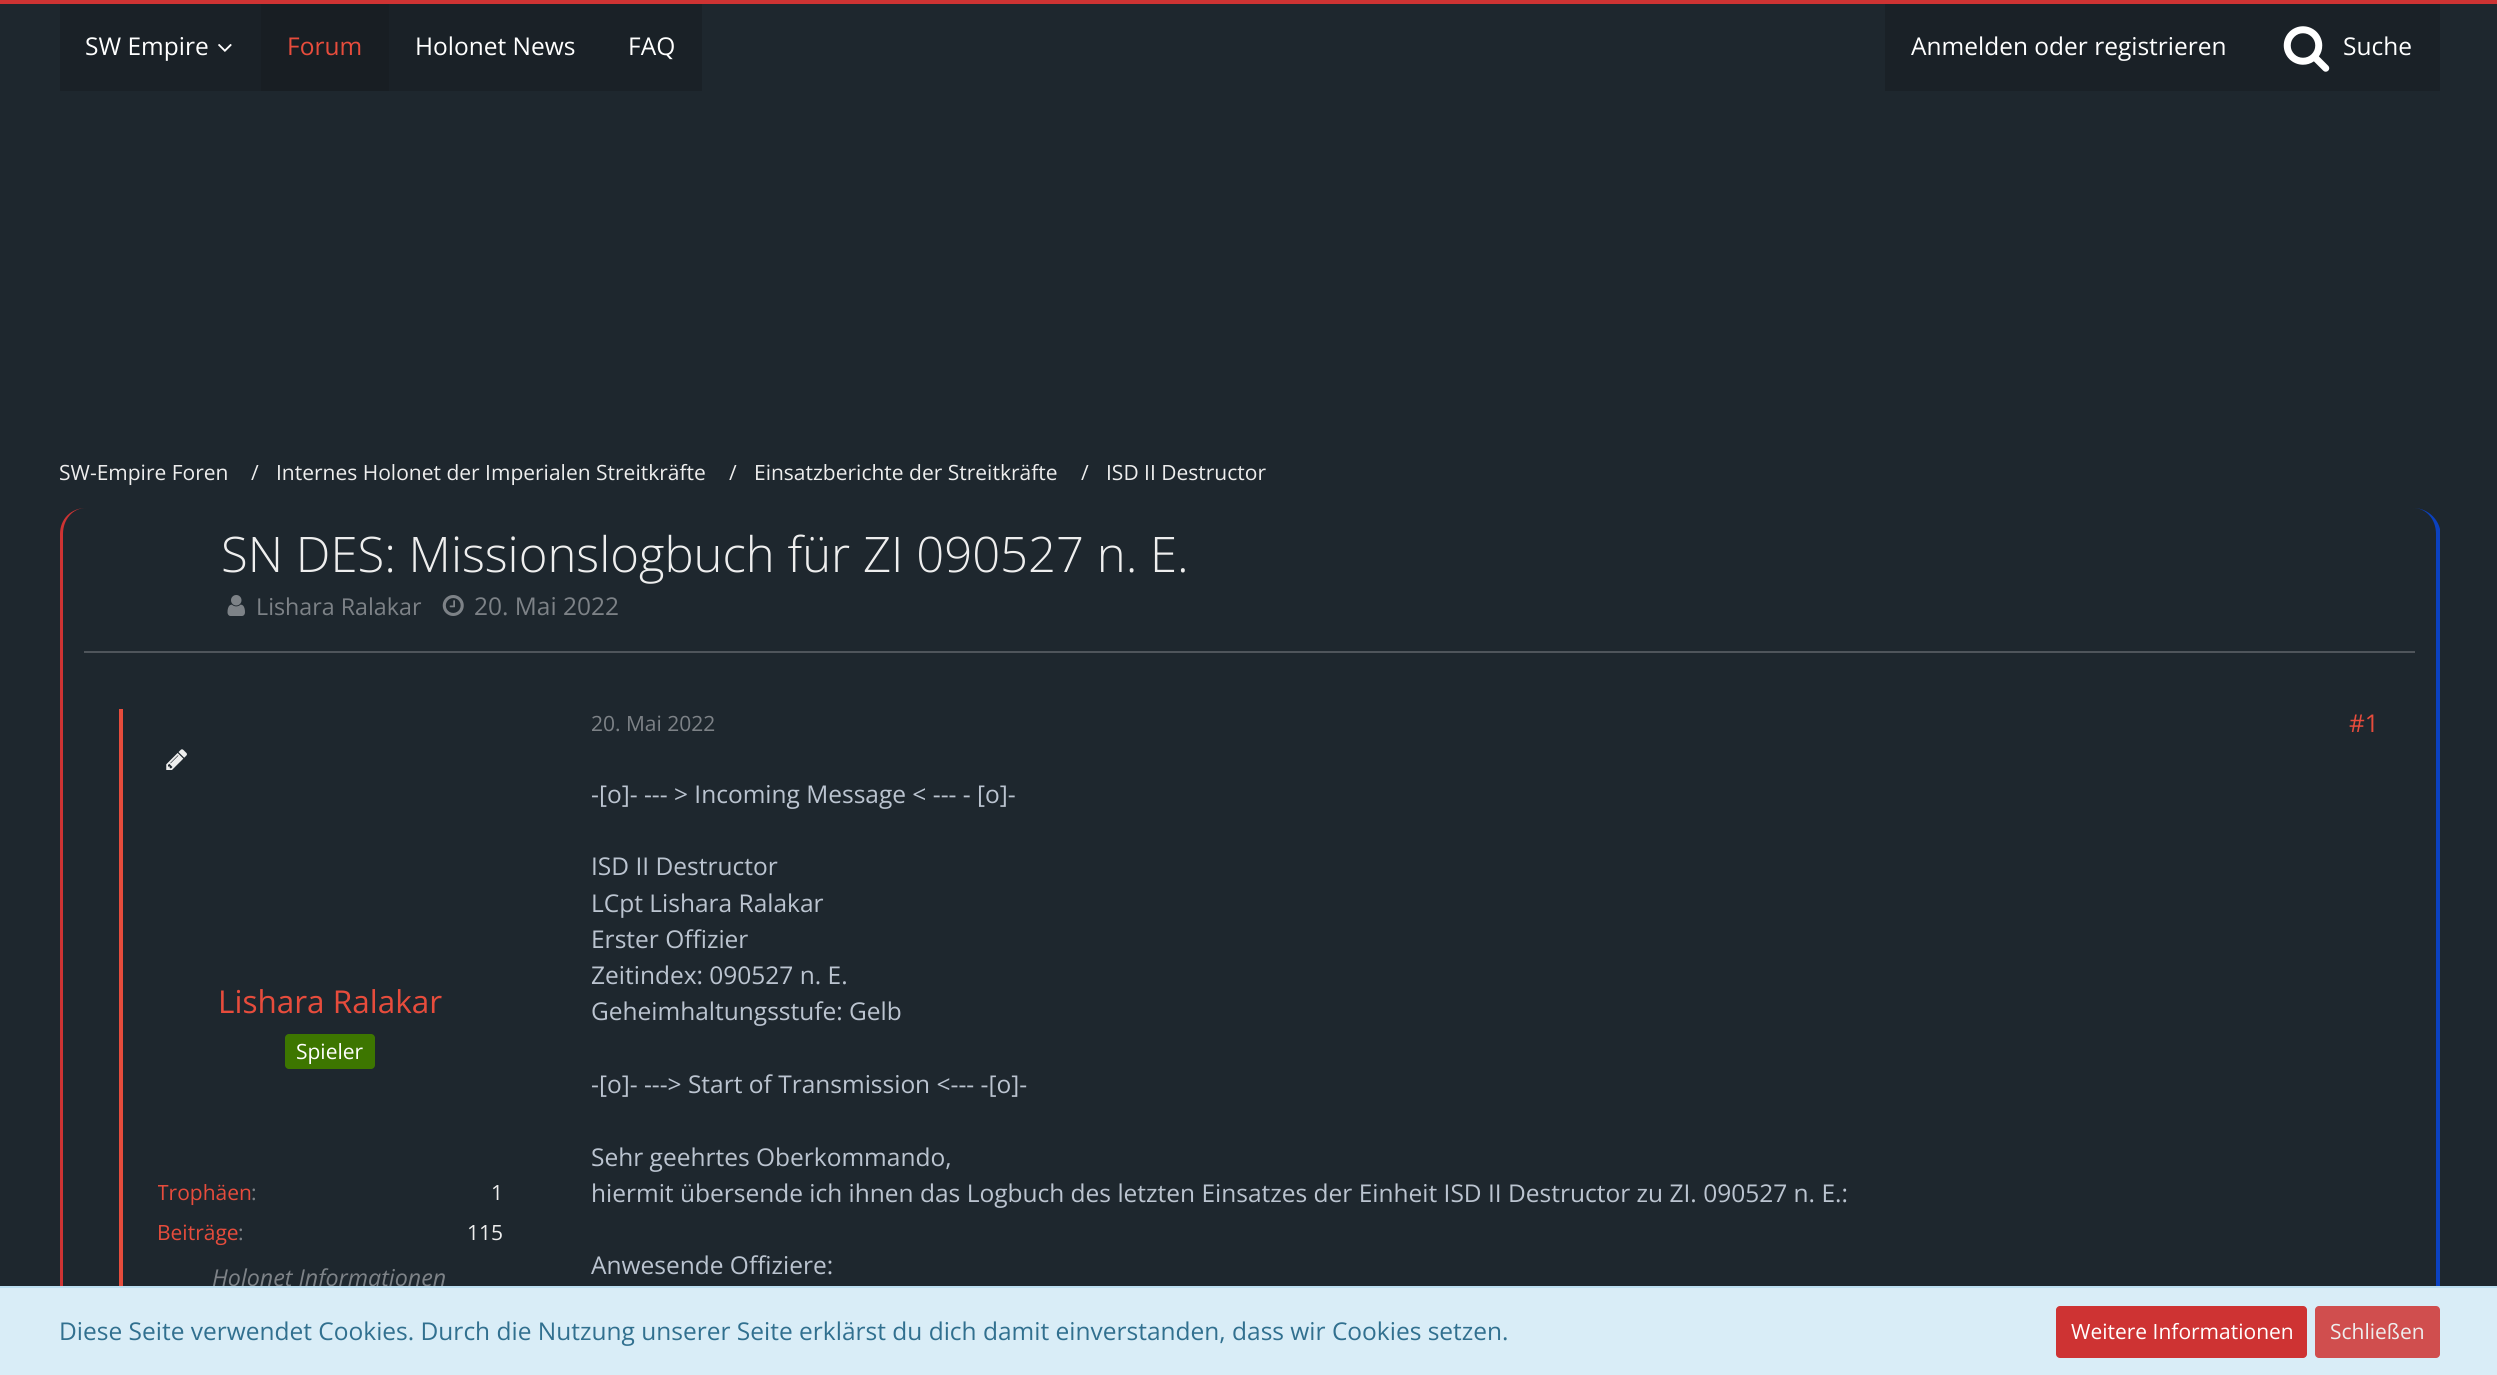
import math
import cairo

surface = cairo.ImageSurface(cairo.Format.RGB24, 2497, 1375)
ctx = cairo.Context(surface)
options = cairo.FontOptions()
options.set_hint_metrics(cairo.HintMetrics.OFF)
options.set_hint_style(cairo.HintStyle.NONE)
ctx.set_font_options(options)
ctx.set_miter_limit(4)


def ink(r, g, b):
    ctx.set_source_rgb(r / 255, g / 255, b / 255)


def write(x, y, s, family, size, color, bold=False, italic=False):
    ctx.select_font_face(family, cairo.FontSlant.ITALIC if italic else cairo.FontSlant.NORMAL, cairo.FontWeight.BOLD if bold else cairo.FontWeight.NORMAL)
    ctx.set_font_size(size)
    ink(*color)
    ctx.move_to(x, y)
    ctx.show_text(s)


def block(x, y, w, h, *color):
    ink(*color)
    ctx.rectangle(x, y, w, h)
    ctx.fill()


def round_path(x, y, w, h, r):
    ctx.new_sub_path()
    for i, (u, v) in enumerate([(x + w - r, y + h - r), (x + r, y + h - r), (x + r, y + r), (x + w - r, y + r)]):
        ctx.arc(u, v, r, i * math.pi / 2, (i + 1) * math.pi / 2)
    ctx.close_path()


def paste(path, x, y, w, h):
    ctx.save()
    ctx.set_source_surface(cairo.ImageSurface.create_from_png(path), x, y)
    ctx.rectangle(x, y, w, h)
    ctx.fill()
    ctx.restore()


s1 = dict(family="Open Sans", size=24.5, color=(255, 255, 255))
s2 = dict(family="Open Sans", size=24.5, color=(231, 76, 60))
s3 = dict(family="Open Sans", size=21, color=(238, 238, 238))
s4 = dict(family="Open Sans Light", size=49, color=(238, 238, 238))
s5 = dict(family="Open Sans", size=23.25, color=(125, 130, 135))
s6 = dict(family="Open Sans", size=24.5, color=(125, 130, 135))
s7 = dict(family="Open Sans", size=31.5, color=(231, 76, 60))
s8 = dict(family="Open Sans", size=21, color=(255, 255, 255))
s9 = dict(family="Open Sans", size=21, color=(231, 76, 60))
s10 = dict(family="Open Sans", size=21, color=(125, 130, 135))
s11 = dict(family="Open Sans", size=23.25, color=(125, 130, 135), italic=True)
s12 = dict(family="Open Sans", size=24.5, color=(187, 196, 208))
s13 = dict(family="Open Sans", size=24.5, color=(49, 112, 143))

ink(30, 39, 46)
ctx.paint()
block(0, 0, 2497, 4, 206, 51, 51)
block(60, 4, 201, 87, 26, 33, 39)
write(85, 55, "SW Empire", **s1)
paste("pic1.png", 218, 44, 14, 8)
block(261, 4, 128, 87, 24, 30, 35)
write(287, 55, "Forum", **s2)
block(389, 4, 313, 87, 26, 33, 39)
write(415, 55, "Holonet News", **s1)
write(628, 55, "FAQ", **s1)
block(1885, 4, 555, 87, 26, 33, 39)
write(1911, 55, "Anmelden oder registrieren", **s1)
paste("pic2.png", 2283, 26, 47, 46)
write(2343, 55, "Suche", **s1)
write(59, 480, "SW-Empire Foren", **s3)
write(251, 480, "/", **s3)
write(276, 480, "Internes Holonet der Imperialen Streitkräfte", **s3)
write(729, 480, "/", **s3)
write(754, 480, "Einsatzberichte der Streitkräfte", **s3)
write(1081, 480, "/", **s3)
write(1106, 480, "ISD II Destructor", **s3)
ink(11, 65, 192)
ctx.new_path()
ctx.move_to(2440, 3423)
ctx.curve_to(2437, 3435, 2426, 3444, 2413, 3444)
ctx.curve_to(2426, 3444, 2436, 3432, 2436, 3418)
ctx.line_to(2436, 534)
ctx.curve_to(2436, 519, 2426, 508, 2413, 508)
ctx.curve_to(2426, 508, 2437, 517, 2440, 529)
ctx.close_path()
ctx.fill()
ink(206, 51, 51)
ctx.new_path()
ctx.move_to(86, 508)
ctx.curve_to(71, 508, 60, 519, 60, 534)
ctx.line_to(60, 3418)
ctx.curve_to(60, 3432, 71, 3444, 86, 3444)
ctx.curve_to(73, 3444, 63, 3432, 63, 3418)
ctx.line_to(63, 534)
ctx.curve_to(63, 519, 73, 508, 86, 508)
ctx.close_path()
ctx.fill()
write(221, 572, "SN DES: Missionslogbuch für ZI 090527 n. E.", **s4)
paste("pic3.png", 227, 595, 18, 21)
write(256, 615, "Lishara Ralakar", **s5)
paste("pic4.png", 442, 595, 22, 21)
write(474, 615, "20. Mai 2022", **s6)
block(84, 651, 2331, 2, 79, 85, 91)
block(119, 709, 4, 577, 230, 76, 60)
paste("pic5.png", 166, 749, 21, 21)
write(218, 1013, "Lishara Ralakar", **s7)
ink(61, 118, 0)
round_path(285, 1034, 90, 35, 4)
ctx.fill()
write(296, 1059, "Spieler", **s8)
ctx.save()
ctx.rectangle(158, 1178, 346, 75)
ctx.clip()
write(157, 1200, "Trophäen", **s9)
ctx.restore()
write(251, 1200, ":", **s10)
write(491, 1200, "1", **s3)
write(157, 1240, "Beiträge", **s9)
write(238, 1240, ":", **s10)
write(467, 1240, "115", **s3)
write(212, 1286, "Holonet Informationen", **s11)
write(591, 731, "20. Mai 2022", **s10)
write(2349, 732, "#1", **s2)
write(591, 803, "-[o]- --- > Incoming Message < --- - [o]-", **s12)
write(591, 875, "ISD II Destructor", **s12)
write(591, 912, "LCpt Lishara Ralakar", **s12)
write(591, 948, "Erster Offizier", **s12)
write(591, 984, "Zeitindex: 090527 n. E.", **s12)
write(591, 1020, "Geheimhaltungsstufe: Gelb", **s12)
write(591, 1093, "-[o]- ---> Start of Transmission <--- -[o]-", **s12)
write(591, 1166, "Sehr geehrtes Oberkommando,", **s12)
write(591, 1202, "hiermit übersende ich ihnen das Logbuch des letzten Einsatzes der Einheit ISD II Destructor zu ZI. 090527 n. E.:", **s12)
write(591, 1274, "Anwesende Offiziere:", **s12)
block(0, 1288, 2497, 87, 217, 237, 247)
block(0, 1286, 2497, 2, 188, 223, 241)
write(59, 1340, "Diese Seite verwendet Cookies. Durch die Nutzung unserer Seite erklärst du dich damit einverstanden, dass wir Cookies setzen.", **s13)
ink(206, 51, 51)
round_path(2056, 1306, 251, 52, 4)
ctx.fill()
write(2071, 1339, "Weitere Informationen", **s8)
ink(208, 78, 78)
round_path(2315, 1306, 125, 52, 4)
ctx.fill()
write(2330, 1339, "Schließen", **s3)
surface.write_to_png("screenshot.png")
